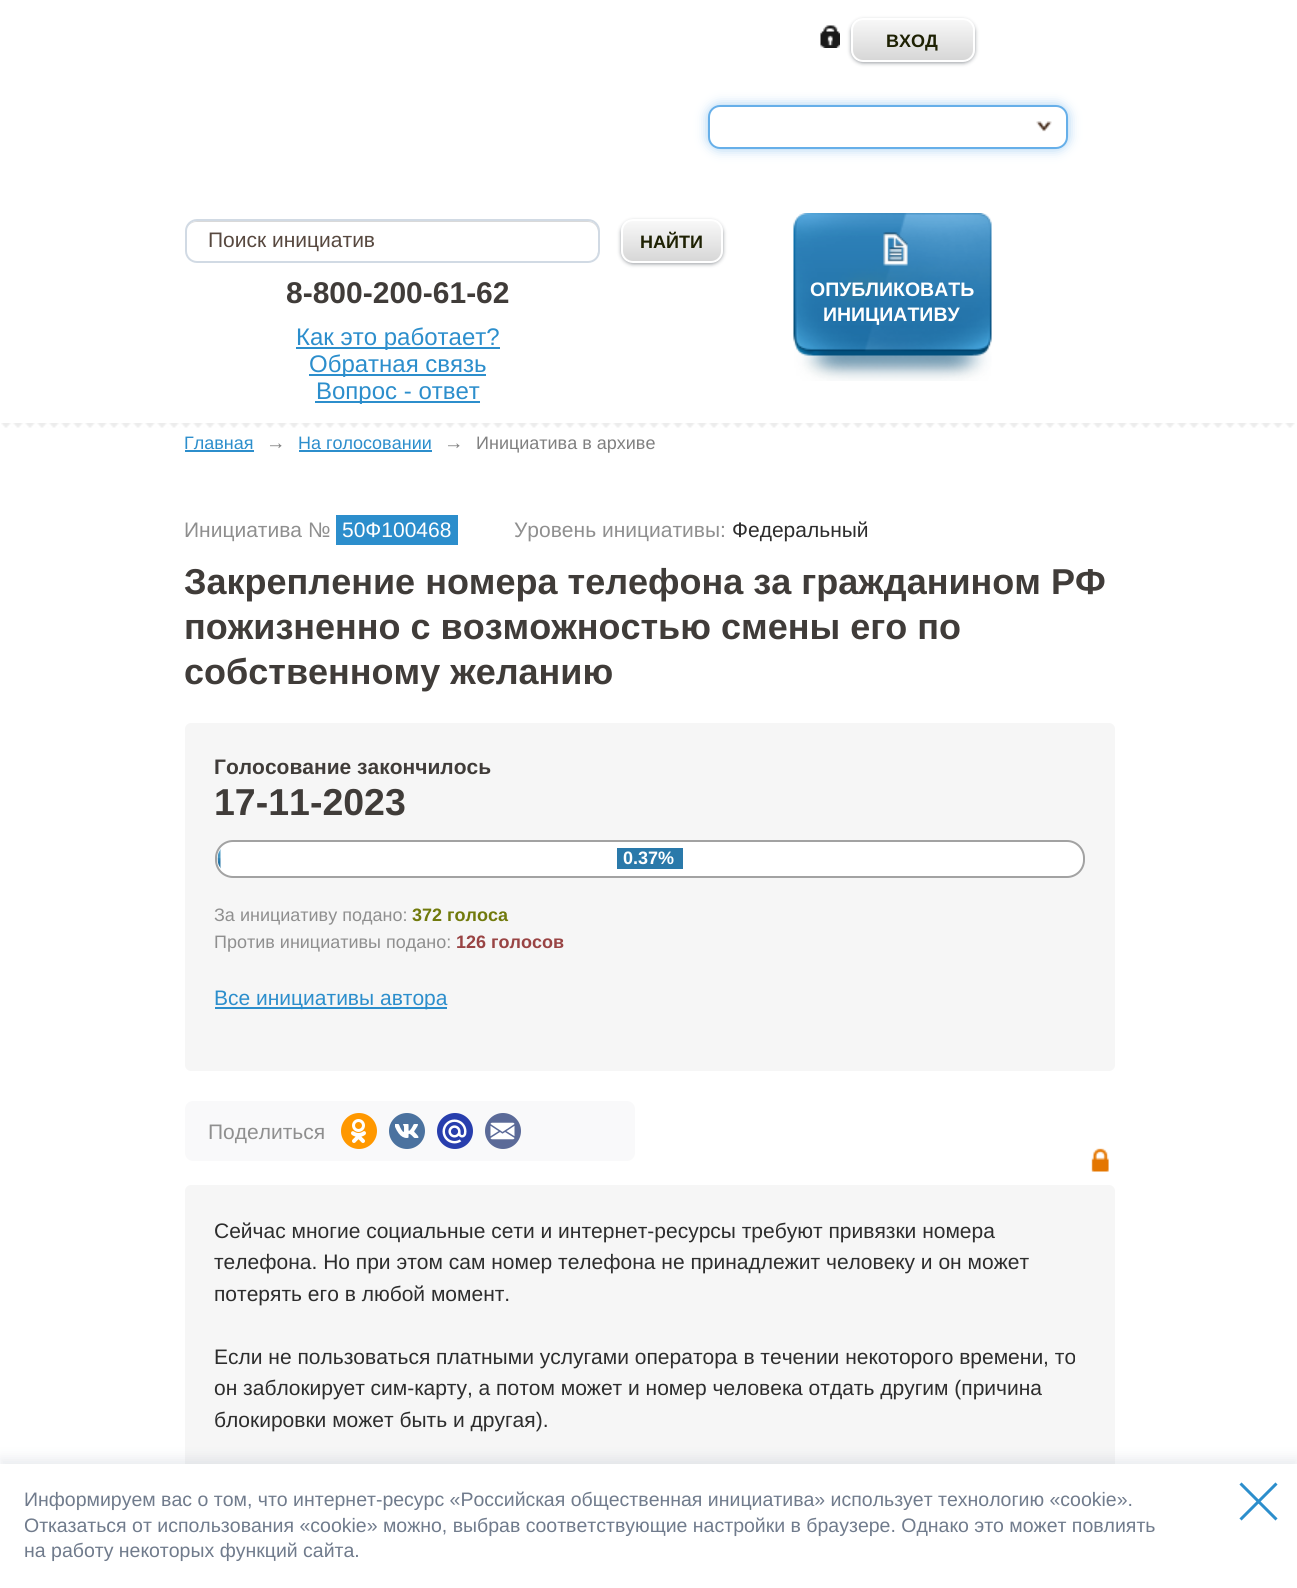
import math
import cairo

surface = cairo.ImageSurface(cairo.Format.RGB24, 1297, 1588)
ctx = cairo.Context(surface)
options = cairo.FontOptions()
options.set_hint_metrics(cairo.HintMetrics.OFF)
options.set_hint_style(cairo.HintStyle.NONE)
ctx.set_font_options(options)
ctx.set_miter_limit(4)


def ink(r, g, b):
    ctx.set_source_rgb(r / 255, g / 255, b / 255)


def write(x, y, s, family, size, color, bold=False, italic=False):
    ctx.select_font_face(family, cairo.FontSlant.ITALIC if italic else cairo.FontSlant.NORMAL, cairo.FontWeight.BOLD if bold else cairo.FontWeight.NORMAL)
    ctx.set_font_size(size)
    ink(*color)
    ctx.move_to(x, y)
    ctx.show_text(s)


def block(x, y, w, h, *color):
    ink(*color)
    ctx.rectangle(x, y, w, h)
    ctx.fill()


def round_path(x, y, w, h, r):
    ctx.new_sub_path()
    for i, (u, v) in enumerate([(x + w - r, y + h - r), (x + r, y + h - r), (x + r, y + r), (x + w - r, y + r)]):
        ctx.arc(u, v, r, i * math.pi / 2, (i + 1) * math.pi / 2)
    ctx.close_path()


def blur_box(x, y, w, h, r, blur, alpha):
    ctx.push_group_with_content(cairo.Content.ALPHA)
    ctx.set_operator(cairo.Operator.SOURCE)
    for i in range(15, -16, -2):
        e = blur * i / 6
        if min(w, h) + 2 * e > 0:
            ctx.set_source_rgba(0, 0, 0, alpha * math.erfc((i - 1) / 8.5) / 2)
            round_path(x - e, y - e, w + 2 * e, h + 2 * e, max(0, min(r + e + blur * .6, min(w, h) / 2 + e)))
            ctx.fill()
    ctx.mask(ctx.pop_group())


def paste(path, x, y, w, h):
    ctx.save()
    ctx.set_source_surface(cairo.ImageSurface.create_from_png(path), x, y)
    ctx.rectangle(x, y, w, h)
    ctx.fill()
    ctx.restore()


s1 = dict(family="Liberation Sans", size=18, color=(30, 33, 3), bold=True)
s2 = dict(family="Liberation Sans", size=21, color=(87, 72, 63))
s3 = dict(family="Liberation Sans", size=30, color=(64, 60, 57), bold=True)
s4 = dict(family="Liberation Sans", size=24, color=(44, 142, 204))
s5 = dict(family="Liberation Sans", size=19.5, color=(255, 255, 255), bold=True)
s6 = dict(family="Liberation Sans", size=18, color=(44, 142, 204))
s7 = dict(family="Liberation Sans", size=19.5, color=(128, 128, 128))
s8 = dict(family="Liberation Sans", size=18, color=(128, 128, 128))
s9 = dict(family="Liberation Sans", size=21, color=(143, 143, 143))
s10 = dict(family="Liberation Sans", size=21, color=(255, 255, 255))
s11 = dict(family="Liberation Sans", size=21, color=(45, 45, 45))
s12 = dict(family="Liberation Sans", size=36, color=(64, 60, 57), bold=True)
s13 = dict(family="Liberation Sans", size=21, color=(64, 60, 57), bold=True)
s14 = dict(family="Liberation Sans", size=37.5, color=(64, 60, 57), bold=True)
s15 = dict(family="Liberation Sans", size=18, color=(255, 255, 255), bold=True)
s16 = dict(family="Liberation Sans", size=18, color=(143, 143, 143))
s17 = dict(family="Liberation Sans", size=18, color=(113, 122, 12), bold=True)
s18 = dict(family="Liberation Sans", size=18, color=(153, 68, 68), bold=True)
s19 = dict(family="Liberation Sans", size=21, color=(44, 142, 204))
s20 = dict(family="Liberation Sans", size=19.5, color=(112, 123, 140))

ink(255, 255, 255)
ctx.paint()
paste("pic1.png", 820, 25, 20, 23)
ink(149, 153, 158)
blur_box(851, 20, 124, 43, 12, 2, 1)
ctx.save()
round_path(851, 18, 124, 44, 12)
ctx.clip()
gradient = cairo.LinearGradient(913, 19, 913, 60)
gradient.add_color_stop_rgba(0, 0.973, 0.973, 0.973, 1)
gradient.add_color_stop_rgba(1, 0.843, 0.843, 0.843, 1)
ctx.set_source(gradient)
ctx.rectangle(851, 20, 124, 40)
ctx.fill()
ctx.restore()
round_path(852, 19, 122, 42, 11)
ink(255, 255, 255)
ctx.stroke()
write(886, 47, "ВХОД", **s1)
ink(102, 175, 233)
blur_box(708, 105, 360, 44, 12, 6, 0.6)
ink(255, 255, 255)
round_path(709, 106, 358, 42, 11)
ctx.fill_preserve()
ink(102, 175, 233)
ctx.stroke()
paste("pic2.png", 1036, 121, 16, 11)
ink(217, 217, 217)
ctx.new_path()
ctx.move_to(196, 222)
ctx.line_to(588, 222)
ctx.curve_to(594, 222, 598, 227, 598, 232)
ctx.line_to(598, 252)
ctx.line_to(597, 256)
ctx.curve_to(598, 254, 599, 252, 599, 250)
ctx.line_to(599, 232)
ctx.curve_to(599, 226, 594, 221, 588, 221)
ctx.line_to(197, 221)
ctx.curve_to(191, 221, 186, 226, 186, 232)
ctx.curve_to(186, 227, 191, 222, 196, 222)
ctx.close_path()
ctx.fill()
round_path(186, 220, 413, 42, 11)
ink(209, 218, 228)
ctx.stroke()
write(208, 247, "Поиск инициатив", **s2)
ink(149, 153, 158)
blur_box(621, 221, 102, 43, 12, 2, 1)
ctx.save()
round_path(621, 219, 102, 44, 12)
ctx.clip()
gradient = cairo.LinearGradient(672, 221, 672, 261)
gradient.add_color_stop_rgba(0, 0.973, 0.973, 0.973, 1)
gradient.add_color_stop_rgba(1, 0.843, 0.843, 0.843, 1)
ctx.set_source(gradient)
ctx.rectangle(621, 221, 102, 40)
ctx.fill()
ctx.restore()
round_path(622, 220, 100, 42, 11)
ink(255, 255, 255)
ctx.stroke()
write(640, 248, "НАЙТИ", **s1)
write(286, 303, "8-800-200-61-62", **s3)
block(296, 347, 204, 2, 44, 142, 204)
write(296, 345, "Как это работает?", **s4)
block(309, 374, 177, 2, 44, 142, 204)
write(309, 372, "Обратная связь", **s4)
block(315, 401, 165, 2, 44, 142, 204)
write(316, 399, "Вопрос - ответ", **s4)
paste("pic3.png", 793, 213, 199, 168)
write(810, 296, "ОПУБЛИКОВАТЬ", **s5)
write(823, 321, "ИНИЦИАТИВУ", **s5)
paste("pic4.png", 1, 423, 1294, 5)
write(184, 449, "Главная", **s6)
block(185, 450, 69, 2, 44, 142, 204)
write(266, 449, "→", **s7)
write(298, 449, "На голосовании", **s6)
block(299, 450, 133, 2, 44, 142, 204)
write(444, 449, "→", **s7)
write(476, 449, "Инициатива в архиве", **s8)
write(184, 537, "Инициатива №", **s9)
block(336, 515, 122, 30, 44, 142, 204)
write(342, 537, "50Ф100468", **s10)
write(514, 537, "Уровень инициативы:", **s9)
write(732, 537, "Федеральный", **s11)
write(184, 594, "Закрепление номера телефона за гражданином РФ", **s12)
write(184, 639, "пожизненно с возможностью смены его по", **s12)
write(184, 684, "собственному желанию", **s12)
ink(246, 246, 246)
round_path(185, 723, 930, 348, 6)
ctx.fill()
write(214, 774, "Голосование закончилось", **s13)
write(214, 815, "17-11-2023", **s14)
ink(255, 255, 255)
round_path(216, 841, 868, 36, 17)
ctx.fill_preserve()
ink(162, 162, 162)
ctx.stroke()
paste("pic5.png", 217, 849, 4, 20)
block(617, 848, 66, 21, 42, 121, 170)
write(623, 864, "0.37%", **s15)
write(214, 921, "За инициативу подано:", **s16)
write(412, 921, "372 голоса", **s17)
write(214, 948, "Против инициативы подано:", **s16)
write(456, 948, "126 голосов", **s18)
block(215, 1007, 232, 2, 44, 142, 204)
write(214, 1005, "Все инициативы автора", **s19)
ink(249, 249, 250)
round_path(185, 1101, 450, 60, 8)
ctx.fill()
write(208, 1139, "Поделиться", **s9)
paste("pic6.png", 341, 1113, 36, 36)
paste("pic7.png", 389, 1113, 36, 36)
paste("pic8.png", 437, 1113, 36, 36)
paste("pic9.png", 485, 1113, 36, 36)
ink(246, 246, 246)
round_path(185, 1185, 930, 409, 6)
ctx.fill()
paste("pic10.png", 1091, 1148, 18, 24)
write(214, 1238, "Сейчас многие социальные сети и интернет-ресурсы требуют привязки номера", **s11)
write(214, 1269, "телефона. Но при этом сам номер телефона не принадлежит человеку и он может", **s11)
write(214, 1301, "потерять его в любой момент.", **s11)
write(214, 1364, "Если не пользоваться платными услугами оператора в течении некоторого времени, то", **s11)
write(214, 1395, "он заблокирует сим-карту, а потом может и номер человека отдать другим (причина", **s11)
write(214, 1427, "блокировки может быть и другая).", **s11)
ink(46, 67, 102)
blur_box(0, 1458, 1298, 125, 0, 6, 0.1)
block(0, 1464, 1297, 124, 255, 255, 255)
write(24, 1506, "Информируем вас о том, что интернет-ресурс «Российская общественная инициатива» использует технологию «cookie».", **s20)
write(24, 1532, "Отказаться от использования «cookie» можно, выбрав соответствующие настройки в браузере. Однако это может повлиять", **s20)
write(24, 1557, "на работу некоторых функций сайта.", **s20)
ctx.new_path()
ctx.move_to(1240.5, 1483.5)
ctx.line_to(1276.5, 1519.5)
ctx.move_to(1276.5, 1483.5)
ctx.line_to(1240.5, 1519.5)
ink(44, 142, 204)
ctx.set_line_width(3)
ctx.stroke()
surface.write_to_png("screenshot.png")
